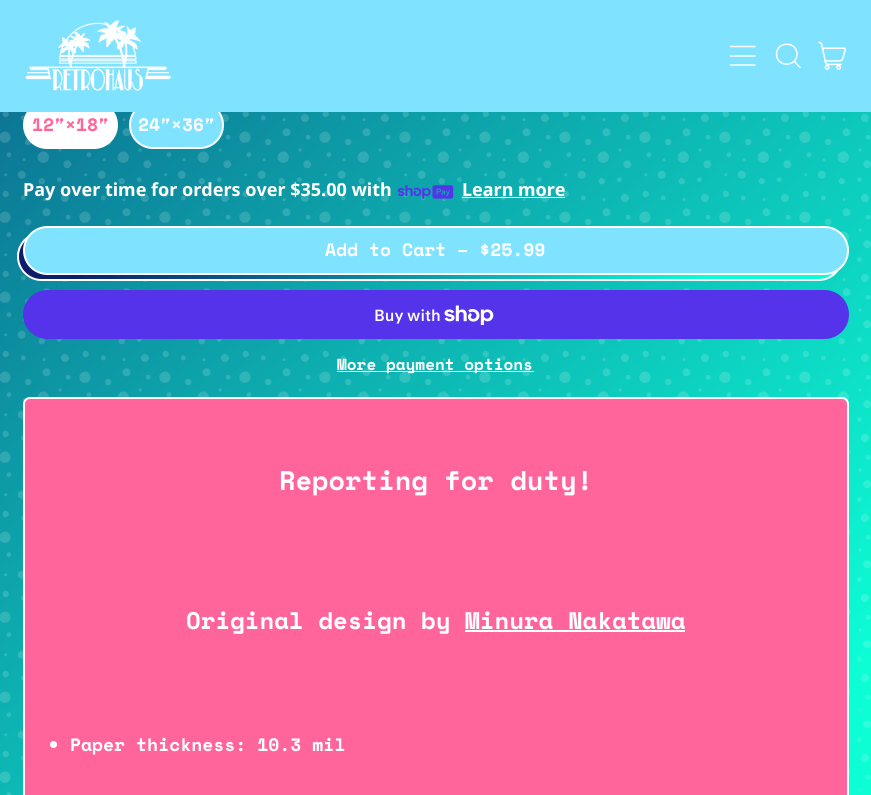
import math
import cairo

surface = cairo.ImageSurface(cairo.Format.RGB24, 871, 795)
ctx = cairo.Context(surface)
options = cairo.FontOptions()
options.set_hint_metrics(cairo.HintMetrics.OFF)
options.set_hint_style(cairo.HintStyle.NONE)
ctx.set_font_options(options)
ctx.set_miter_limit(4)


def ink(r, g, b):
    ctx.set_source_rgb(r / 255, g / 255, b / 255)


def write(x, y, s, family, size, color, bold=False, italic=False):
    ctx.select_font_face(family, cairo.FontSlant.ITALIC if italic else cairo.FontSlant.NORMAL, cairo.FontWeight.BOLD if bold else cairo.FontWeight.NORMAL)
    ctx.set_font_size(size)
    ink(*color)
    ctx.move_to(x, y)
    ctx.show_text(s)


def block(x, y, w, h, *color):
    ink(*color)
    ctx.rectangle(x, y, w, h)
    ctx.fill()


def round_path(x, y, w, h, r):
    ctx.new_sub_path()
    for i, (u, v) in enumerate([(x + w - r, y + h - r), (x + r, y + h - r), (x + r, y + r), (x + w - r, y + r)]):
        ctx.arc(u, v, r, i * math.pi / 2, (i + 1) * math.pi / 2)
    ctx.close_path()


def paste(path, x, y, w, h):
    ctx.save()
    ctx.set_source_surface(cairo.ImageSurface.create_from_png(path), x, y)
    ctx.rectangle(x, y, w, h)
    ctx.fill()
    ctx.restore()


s1 = dict(family="Space Mono", size=18, color=(255, 100, 155), bold=True)
s2 = dict(family="Space Mono", size=18, color=(255, 255, 255), bold=True)
s3 = dict(family="Noto Sans", size=18, color=(255, 255, 255), bold=True)
s4 = dict(family="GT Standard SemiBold", size=16, color=(255, 255, 255))
s5 = dict(family="Space Mono", size=16, color=(255, 255, 255), bold=True)
s6 = dict(family="Space Mono", size=27, color=(255, 255, 255), bold=True)
s7 = dict(family="Space Mono", size=24, color=(255, 255, 255), bold=True)

ink(255, 255, 255)
ctx.paint()
gradient = cairo.LinearGradient(-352, -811, 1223, 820)
gradient.add_color_stop_rgba(0.11, 0.047, 0.114, 0.416, 1)
gradient.add_color_stop_rgba(0.84, 0.051, 0.992, 0.835, 1)
ctx.set_source(gradient)
ctx.rectangle(0, 112, 871, 683)
ctx.fill()
paste("pic3.png", 0, 112, 871, 683)
ink(255, 255, 255)
round_path(24, 102, 93, 46, 23)
ctx.fill_preserve()
ctx.stroke()
ink(127, 226, 255)
round_path(130, 102, 93, 46, 23)
ctx.fill_preserve()
ink(255, 255, 255)
ctx.stroke()
block(0, 0, 871, 112, 127, 226, 255)
paste("pic1.png", 25, 20, 146, 71)
ctx.new_path()
ctx.move_to(755, 65)
ctx.line_to(730.5, 65)
ctx.move_to(755, 56)
ctx.line_to(730.5, 56)
ctx.move_to(755, 46.5)
ctx.line_to(730.5, 46.5)
ink(255, 255, 255)
ctx.set_line_width(1.5)
ctx.set_line_cap(cairo.LineCap.ROUND)
ctx.set_line_join(cairo.LineJoin.ROUND)
ctx.stroke()
ctx.new_path()
ctx.move_to(776.5, 54)
ctx.curve_to(776.5, 67.5, 797, 67.5, 797, 54)
ctx.curve_to(797, 41, 776.5, 41, 776.5, 54)
ctx.close_path()
ctx.move_to(800, 67.5)
ctx.line_to(794.5, 61.5)
ctx.stroke()
paste("pic2.png", 818, 41, 28, 29)
write(32, 131, "12″×18″", **s1)
write(138, 131, "24″×36″", **s2)
write(23, 196, "Pay over time for orders over $35.00 with", **s3)
paste("pic4.png", 397, 185, 57, 14)
write(462, 196, "Learn more", **s3)
block(462, 197, 103, 1, 255, 255, 255)
ctx.save()
round_path(17, 232, 826, 49, 24.5)
ctx.clip()
gradient = cairo.LinearGradient(220, 39, 640, 474)
gradient.add_color_stop_rgba(0.11, 0.047, 0.114, 0.416, 1)
gradient.add_color_stop_rgba(0.84, 0.051, 0.992, 0.835, 1)
ctx.set_source(gradient)
ctx.rectangle(19, 235, 821, 44)
ctx.fill()
ctx.restore()
round_path(18, 233, 824, 47, 23.5)
ctx.set_line_width(2)
ctx.set_line_cap(cairo.LineCap.BUTT)
ctx.set_line_join(cairo.LineJoin.MITER)
ctx.stroke()
ink(127, 226, 255)
round_path(24, 227, 824, 47, 23.5)
ctx.fill_preserve()
ink(255, 255, 255)
ctx.stroke()
write(325, 256, "Add to Cart – $25.99", **s2)
ink(84, 51, 235)
round_path(23, 290, 826, 49, 24.5)
ctx.fill()
write(374, 321, "Buy with", **s4)
paste("pic5.png", 444, 305, 50, 20)
block(337, 371, 197, 1, 255, 255, 255)
write(337, 370, "More payment options", **s5)
ink(255, 100, 155)
round_path(24, 398, 824, 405, 6)
ctx.fill_preserve()
ink(255, 255, 255)
ctx.stroke()
write(279, 490, "Reporting for duty!", **s6)
write(186, 629, "Original design by Minura Nakatawa", **s7)
block(465, 630, 220, 2, 255, 255, 255)
ctx.new_path()
ctx.arc(53.5, 744.5, 3.5, 0, 2 * math.pi)
ctx.fill()
write(70, 751, "Paper thickness: 10.3 mil", **s2)
surface.write_to_png("screenshot.png")
